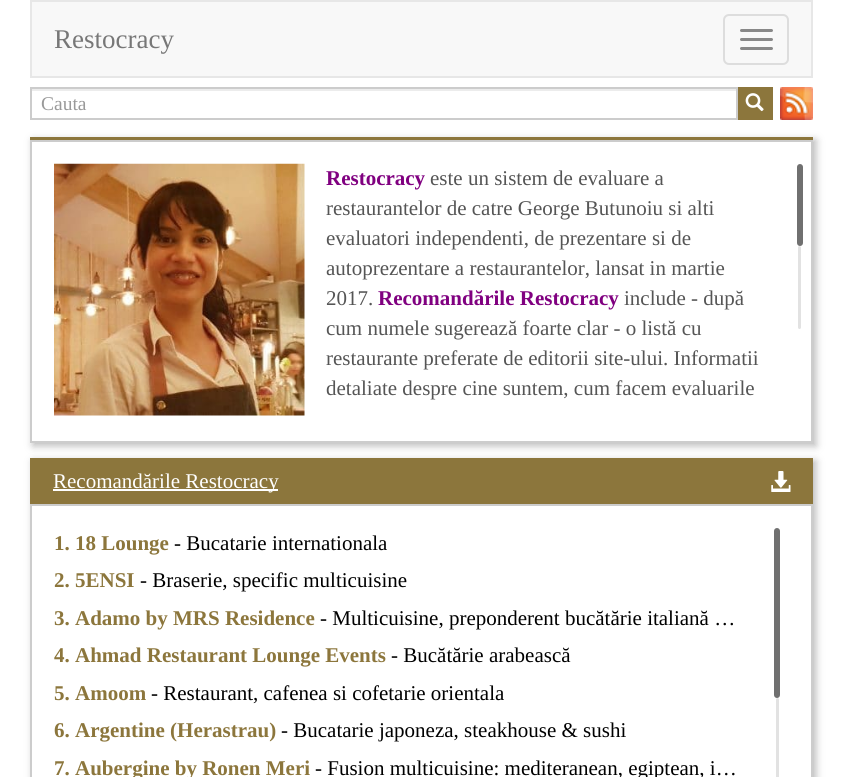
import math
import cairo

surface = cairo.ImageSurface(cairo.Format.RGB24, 843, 777)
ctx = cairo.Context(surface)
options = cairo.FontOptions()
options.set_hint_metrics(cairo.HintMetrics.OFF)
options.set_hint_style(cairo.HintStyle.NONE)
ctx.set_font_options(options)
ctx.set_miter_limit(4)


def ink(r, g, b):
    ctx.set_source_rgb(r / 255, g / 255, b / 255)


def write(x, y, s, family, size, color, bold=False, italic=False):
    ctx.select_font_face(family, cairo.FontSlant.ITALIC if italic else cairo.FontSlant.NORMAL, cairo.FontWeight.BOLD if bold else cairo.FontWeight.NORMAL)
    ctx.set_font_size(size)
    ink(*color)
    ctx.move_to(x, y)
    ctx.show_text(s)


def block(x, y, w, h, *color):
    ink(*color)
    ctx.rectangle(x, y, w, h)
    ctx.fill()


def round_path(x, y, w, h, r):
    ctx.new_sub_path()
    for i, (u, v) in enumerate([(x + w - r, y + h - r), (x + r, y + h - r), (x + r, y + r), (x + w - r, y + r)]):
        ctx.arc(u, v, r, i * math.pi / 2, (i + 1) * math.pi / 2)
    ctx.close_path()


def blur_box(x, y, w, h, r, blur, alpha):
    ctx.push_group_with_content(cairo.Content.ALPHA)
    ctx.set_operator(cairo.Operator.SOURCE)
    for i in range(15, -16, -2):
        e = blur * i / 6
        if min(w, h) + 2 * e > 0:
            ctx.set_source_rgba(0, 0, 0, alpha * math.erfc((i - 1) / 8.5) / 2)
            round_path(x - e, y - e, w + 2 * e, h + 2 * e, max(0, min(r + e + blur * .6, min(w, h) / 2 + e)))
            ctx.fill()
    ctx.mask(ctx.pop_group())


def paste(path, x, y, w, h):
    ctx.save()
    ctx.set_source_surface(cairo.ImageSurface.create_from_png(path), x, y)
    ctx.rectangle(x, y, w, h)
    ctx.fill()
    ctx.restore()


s1 = dict(family="Liberation Serif", size=27, color=(119, 119, 119))
s2 = dict(family="Liberation Serif", size=19.5, color=(153, 153, 153))
s3 = dict(family="Liberation Serif", size=21, color=(128, 0, 128), bold=True)
s4 = dict(family="Liberation Serif", size=21, color=(85, 85, 85))
s5 = dict(family="Liberation Serif", size=21, color=(255, 255, 255))
s6 = dict(family="Liberation Serif", size=21, color=(140, 118, 60), bold=True)
s7 = dict(family="Liberation Serif", size=21, color=(0, 0, 0))

ink(255, 255, 255)
ctx.paint()
ink(248, 248, 248)
ctx.rectangle(31, 1, 781, 76)
ctx.fill_preserve()
ink(231, 231, 231)
ctx.stroke()
write(54, 48, "Restocracy", **s1)
round_path(724, 15, 64, 49, 5)
ink(221, 221, 221)
ctx.stroke()
ink(136, 136, 136)
round_path(740, 29, 33, 3, 1.5)
ctx.fill()
round_path(740, 38, 33, 3, 1.5)
ctx.fill()
round_path(740, 47, 33, 3, 1.5)
ctx.fill()
block(32, 89, 705, 2, 236, 236, 236)
ctx.rectangle(31, 88, 706, 31)
ink(204, 204, 204)
ctx.stroke()
write(41, 110, "Cauta", **s2)
block(738, 87, 35, 33, 140, 118, 60)
paste("pic1.png", 745, 93, 19, 19)
paste("pic2.png", 780, 87, 33, 33)
ctx.save()
ctx.set_fill_rule(cairo.FillRule.EVEN_ODD)
ctx.new_path()
ctx.move_to(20, 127)
ctx.line_to(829, 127)
ctx.line_to(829, 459)
ctx.line_to(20, 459)
ctx.close_path()
ctx.move_to(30, 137)
ctx.line_to(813, 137)
ctx.line_to(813, 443)
ctx.line_to(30, 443)
ctx.close_path()
ctx.clip()
ink(187, 187, 187)
blur_box(33, 140, 783, 306, 0, 4, 1)
ctx.restore()
block(30, 137, 783, 3, 140, 118, 60)
ctx.rectangle(31, 141, 781, 301)
ink(204, 204, 204)
ctx.stroke()
paste("pic3.png", 54, 163, 251, 253)
write(326, 185, "Restocracy", **s3)
write(430, 185, "este un sistem de evaluare a", **s4)
write(326, 215, "restaurantelor de catre George Butunoiu si alti", **s4)
write(326, 245, "evaluatori independenti, de prezentare si de", **s4)
write(326, 275, "autoprezentare a restaurantelor, lansat in martie", **s4)
write(326, 305, "2017.", **s4)
write(378, 305, "Recomandările Restocracy", **s3)
write(624, 305, "include - după", **s4)
write(326, 335, "cum numele sugerează foarte clar - o listă cu", **s4)
write(326, 365, "restaurante preferate de editorii site-ului. Informatii", **s4)
write(326, 395, "detaliate despre cine suntem, cum facem evaluarile", **s4)
ink(112, 112, 112)
round_path(797, 164, 6, 82, 3)
ctx.fill()
ink(226, 226, 226)
round_path(798, 246, 3, 83, 1.5)
ctx.fill()
ctx.save()
ctx.set_fill_rule(cairo.FillRule.EVEN_ODD)
ctx.new_path()
ctx.move_to(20, 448)
ctx.line_to(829, 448)
ctx.line_to(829, 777)
ctx.line_to(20, 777)
ctx.close_path()
ctx.move_to(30, 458)
ctx.line_to(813, 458)
ctx.line_to(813, 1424)
ctx.line_to(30, 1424)
ctx.close_path()
ctx.clip()
ink(187, 187, 187)
blur_box(33, 461, 783, 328, 0, 4, 1)
ctx.restore()
block(30, 458, 783, 46, 140, 118, 60)
block(53, 489, 225, 2, 255, 255, 255)
write(53, 488, "Recomandările Restocracy", **s5)
paste("pic4.png", 771, 471, 20, 21)
ctx.rectangle(31, 505, 781, 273)
ink(204, 204, 204)
ctx.stroke()
write(54, 550, "1. 18 Lounge", **s6)
write(174, 550, "- Bucatarie internationala", **s7)
write(54, 587, "2. 5ENSI", **s6)
write(140, 587, "- Braserie, specific multicuisine", **s7)
write(54, 625, "3. Adamo by MRS Residence", **s6)
write(320, 625, "- Multicuisine, preponderent bucătărie italiană …", **s7)
write(54, 662, "4. Ahmad Restaurant Lounge Events", **s6)
write(391, 662, "- Bucătărie arabească", **s7)
write(54, 700, "5. Amoom", **s6)
write(151, 700, "- Restaurant, cafenea si cofetarie orientala", **s7)
write(54, 737, "6. Argentine (Herastrau)", **s6)
write(281, 737, "- Bucatarie japoneza, steakhouse & sushi", **s7)
write(54, 775, "7. Aubergine by Ronen Meri", **s6)
write(315, 775, "- Fusion multicuisine: mediteranean, egiptean, i…", **s7)
ink(112, 112, 112)
round_path(774, 528, 6, 170, 3)
ctx.fill()
ink(226, 226, 226)
round_path(776, 698, 3, 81, 1.5)
ctx.fill()
surface.write_to_png("screenshot.png")
